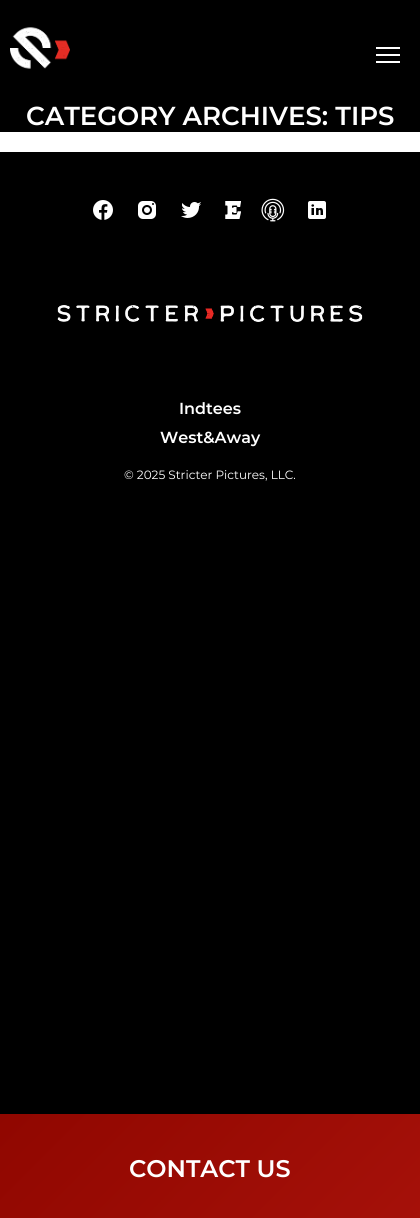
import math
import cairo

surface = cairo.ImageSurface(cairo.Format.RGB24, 420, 1218)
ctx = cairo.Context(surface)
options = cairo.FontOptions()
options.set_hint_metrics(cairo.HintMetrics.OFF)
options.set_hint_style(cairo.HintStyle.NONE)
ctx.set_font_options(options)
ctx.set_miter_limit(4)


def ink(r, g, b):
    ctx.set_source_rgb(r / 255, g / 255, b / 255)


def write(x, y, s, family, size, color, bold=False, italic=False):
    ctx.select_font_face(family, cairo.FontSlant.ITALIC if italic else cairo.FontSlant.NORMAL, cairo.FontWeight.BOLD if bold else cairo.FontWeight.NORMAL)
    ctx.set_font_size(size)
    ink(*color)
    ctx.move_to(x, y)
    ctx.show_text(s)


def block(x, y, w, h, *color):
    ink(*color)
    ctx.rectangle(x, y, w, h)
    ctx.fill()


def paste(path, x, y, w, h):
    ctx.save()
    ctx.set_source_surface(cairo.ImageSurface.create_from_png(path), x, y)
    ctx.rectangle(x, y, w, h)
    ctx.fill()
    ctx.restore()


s1 = dict(family="Montserrat SemiBold", size=26, color=(255, 255, 255))
s2 = dict(family="Montserrat SemiBold", size=16, color=(255, 255, 255))
s3 = dict(family="Montserrat", size=12, color=(255, 255, 255))
s4 = dict(family="Montserrat SemiBold", size=24, color=(255, 255, 255))

ink(0, 0, 0)
ctx.paint()
block(0, 132, 420, 20, 255, 255, 255)
paste("pic1.png", 10, 27, 60, 42)
block(376, 47, 24, 2, 255, 255, 255)
block(376, 54, 24, 2, 255, 255, 255)
block(376, 61, 24, 2, 255, 255, 255)
write(26, 125, "CATEGORY ARCHIVES: TIPS", **s1)
paste("pic2.png", 93, 200, 20, 20)
paste("pic3.png", 138, 201, 18, 18)
paste("pic4.png", 181, 202, 20, 16)
paste("pic5.png", 225, 201, 16, 18)
paste("pic6.png", 261, 198, 24, 24)
paste("pic7.png", 308, 201, 18, 18)
paste("pic8.png", 57, 305, 306, 17)
write(179, 414, "Indtees", **s2)
write(160, 443, "West&Away", **s2)
write(124, 479, "© 2025 Stricter Pictures, LLC.", **s3)
gradient = cairo.LinearGradient(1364, 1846, 316, 798)
gradient.add_color_stop_rgba(0, 0.898, 0.18, 0.145, 1)
gradient.add_color_stop_rgba(1, 0.565, 0.027, 0, 1)
ctx.set_source(gradient)
ctx.rectangle(0, 1114, 420, 104)
ctx.fill()
write(129, 1177, "CONTACT US", **s4)
surface.write_to_png("screenshot.png")
